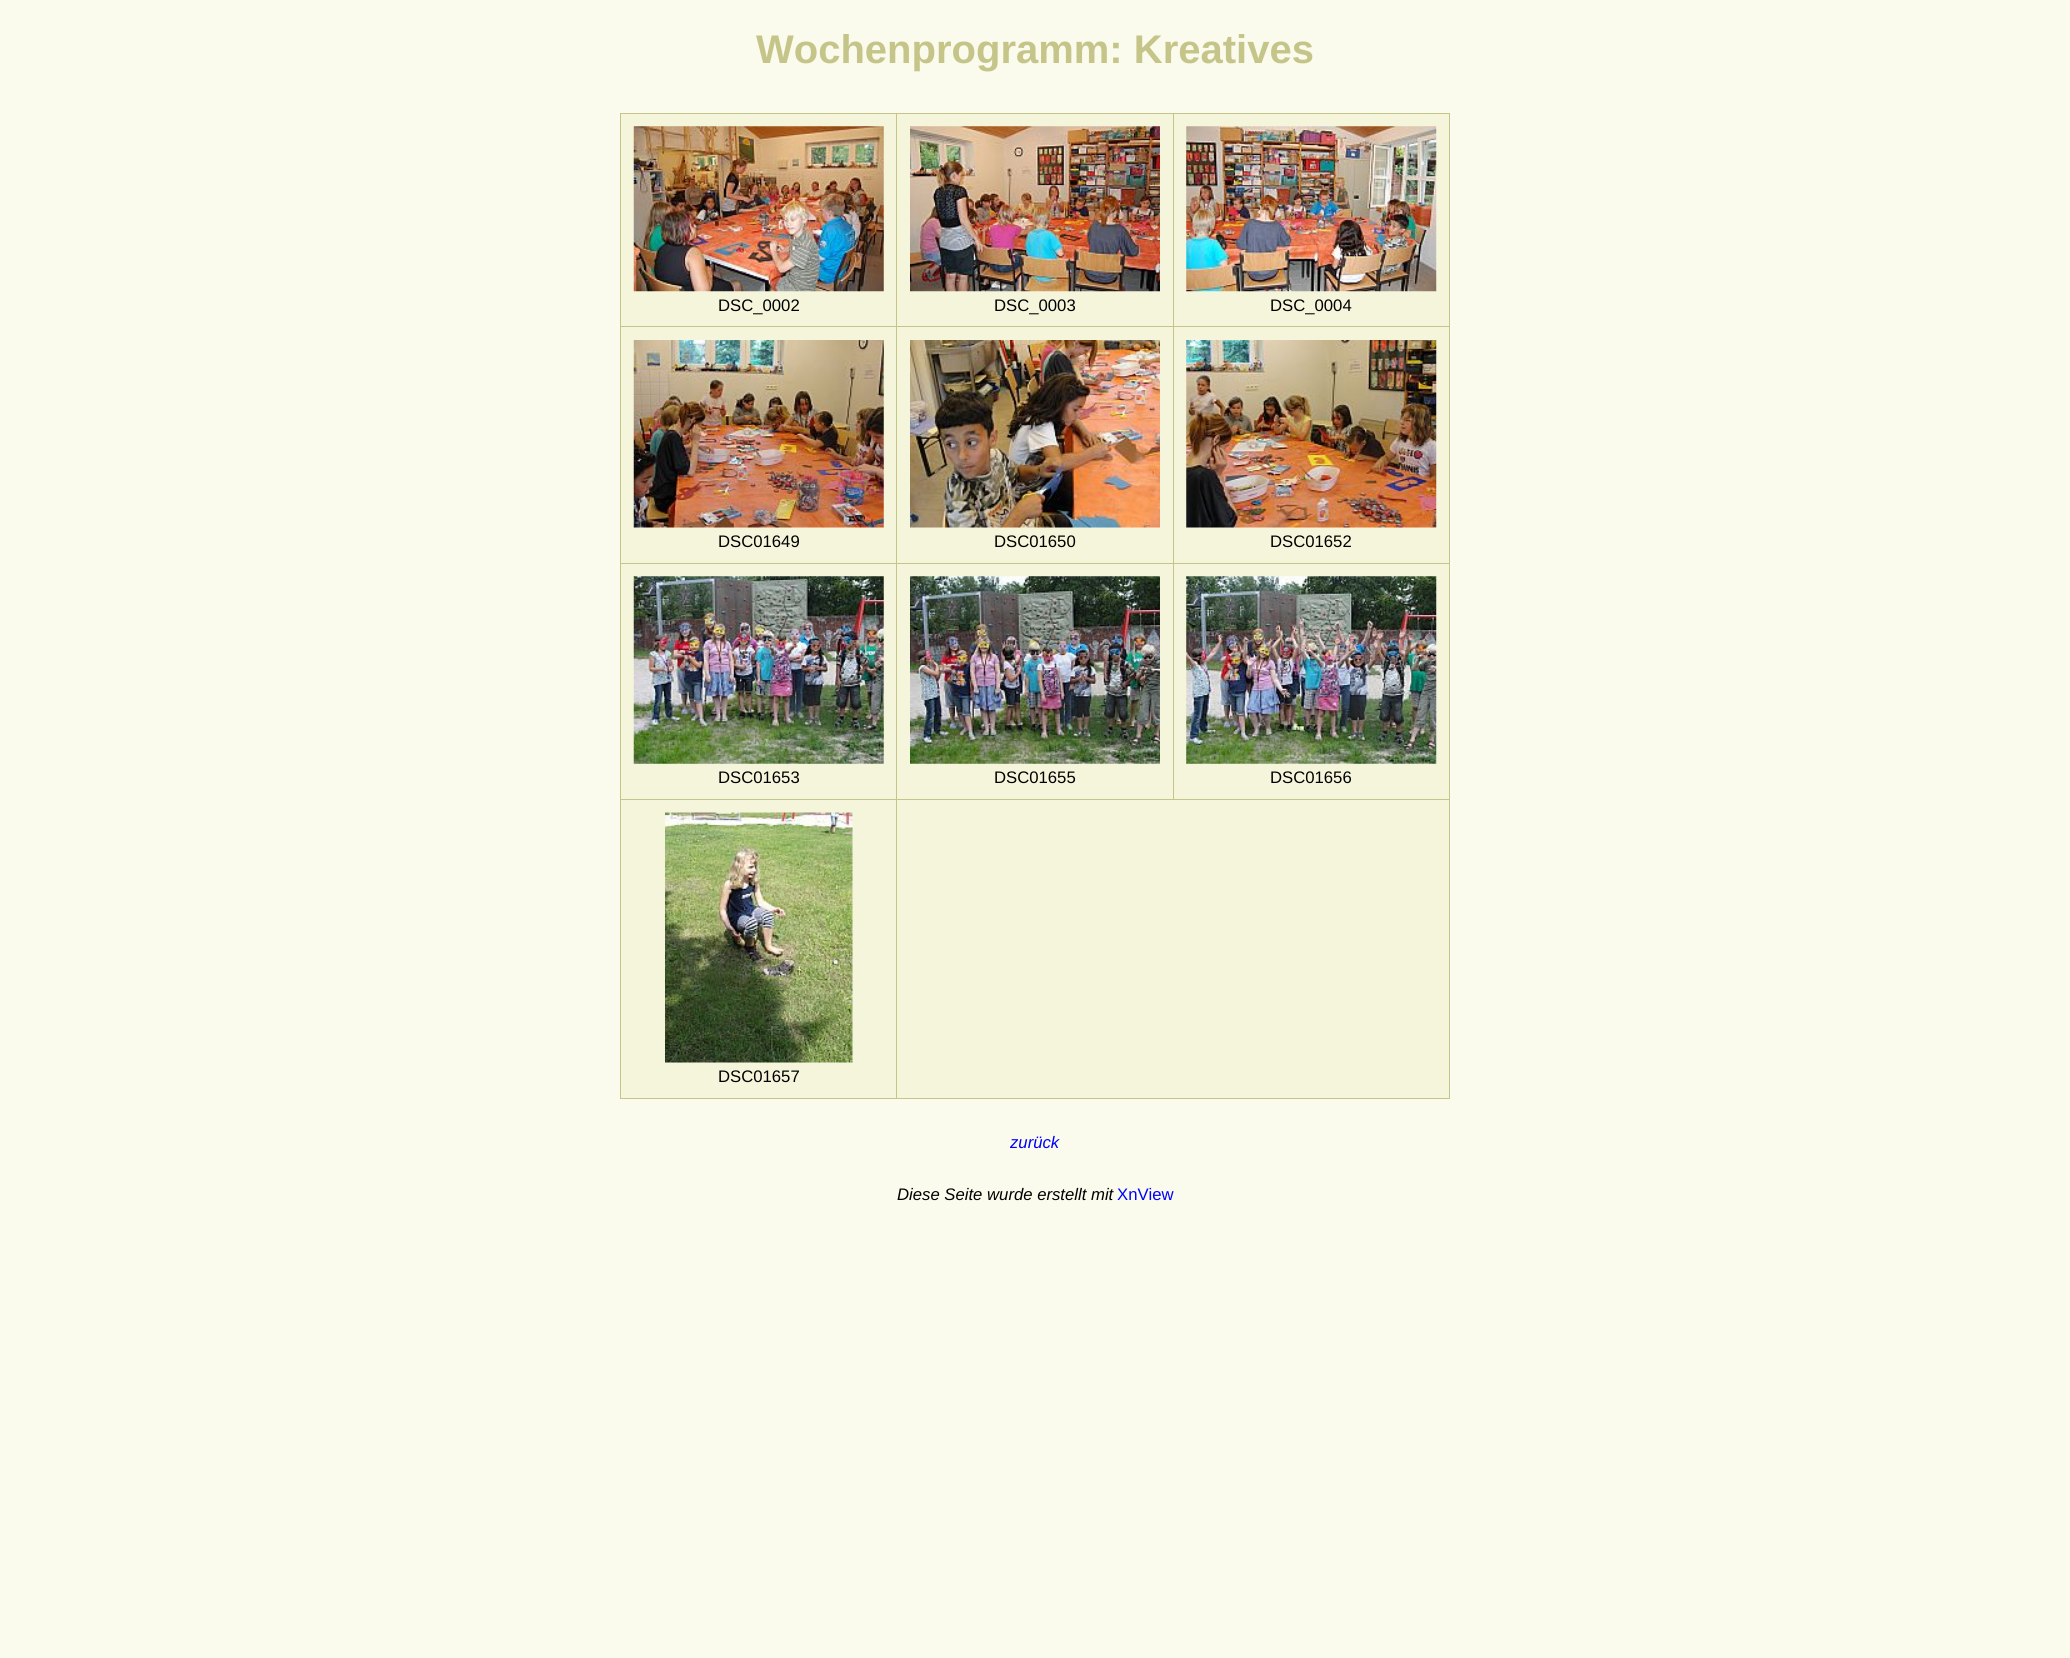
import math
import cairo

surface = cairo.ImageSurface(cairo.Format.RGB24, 2070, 1658)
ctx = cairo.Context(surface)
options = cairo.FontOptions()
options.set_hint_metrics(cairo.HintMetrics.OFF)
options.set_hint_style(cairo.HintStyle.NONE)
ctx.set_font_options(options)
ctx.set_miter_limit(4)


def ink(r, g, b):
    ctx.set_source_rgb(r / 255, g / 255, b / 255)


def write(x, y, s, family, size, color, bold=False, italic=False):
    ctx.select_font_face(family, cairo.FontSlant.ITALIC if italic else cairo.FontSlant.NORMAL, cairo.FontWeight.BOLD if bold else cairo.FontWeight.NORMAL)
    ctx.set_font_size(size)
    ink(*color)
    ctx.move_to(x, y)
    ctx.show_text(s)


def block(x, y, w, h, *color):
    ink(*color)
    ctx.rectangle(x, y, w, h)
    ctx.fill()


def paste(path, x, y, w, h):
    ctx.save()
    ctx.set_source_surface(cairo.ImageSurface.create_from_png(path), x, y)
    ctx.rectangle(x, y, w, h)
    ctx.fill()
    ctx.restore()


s1 = dict(family="Liberation Sans", size=40, color=(197, 197, 137), bold=True)
s2 = dict(family="Liberation Sans", size=16.7, color=(0, 0, 0))
s3 = dict(family="Liberation Sans", size=16.7, color=(0, 0, 255), italic=True)
s4 = dict(family="Liberation Sans", size=16.7, color=(0, 0, 0), italic=True)
s5 = dict(family="Liberation Sans", size=16.7, color=(0, 0, 255))

ink(250, 250, 237)
ctx.paint()
write(756, 63, "Wochenprogramm: Kreatives", **s1)
block(621, 114, 828, 984, 245, 245, 220)
block(620, 113, 830, 1, 197, 197, 137)
block(1449, 113, 1, 986, 197, 197, 137)
block(620, 1098, 830, 1, 197, 197, 137)
block(620, 113, 1, 986, 197, 197, 137)
paste("pic1.png", 633, 126, 251, 166)
write(718, 311, "DSC_0002", **s2)
block(1173, 326, 277, 1, 197, 197, 137)
block(1173, 563, 277, 1, 197, 197, 137)
block(1173, 799, 277, 1, 197, 197, 137)
block(1173, 563, 1, 237, 197, 197, 137)
block(896, 563, 278, 1, 197, 197, 137)
block(1173, 326, 1, 238, 197, 197, 137)
block(896, 326, 278, 1, 197, 197, 137)
block(620, 799, 278, 1, 197, 197, 137)
block(896, 799, 1, 300, 197, 197, 137)
block(896, 799, 278, 1, 197, 197, 137)
block(896, 563, 1, 237, 197, 197, 137)
block(620, 563, 278, 1, 197, 197, 137)
block(896, 326, 1, 238, 197, 197, 137)
block(620, 326, 278, 1, 197, 197, 137)
block(896, 113, 1, 215, 197, 197, 137)
paste("pic2.png", 910, 126, 250, 166)
write(994, 311, "DSC_0003", **s2)
block(1173, 113, 1, 215, 197, 197, 137)
paste("pic3.png", 1186, 126, 251, 166)
write(1270, 311, "DSC_0004", **s2)
paste("pic4.png", 633, 340, 251, 188)
write(718, 547, "DSC01649", **s2)
paste("pic5.png", 910, 340, 250, 188)
write(994, 547, "DSC01650", **s2)
paste("pic6.png", 1186, 340, 251, 188)
write(1270, 547, "DSC01652", **s2)
paste("pic7.png", 633, 576, 251, 188)
write(718, 783, "DSC01653", **s2)
paste("pic8.png", 910, 576, 250, 188)
write(994, 783, "DSC01655", **s2)
paste("pic9.png", 1186, 576, 251, 188)
write(1270, 783, "DSC01656", **s2)
paste("pic10.png", 665, 812, 188, 251)
write(718, 1082, "DSC01657", **s2)
write(1010, 1148, "zurück", **s3)
write(897, 1200, "Diese Seite wurde erstellt mit", **s4)
write(1117, 1200, "XnView", **s5)
surface.write_to_png("screenshot.png")
